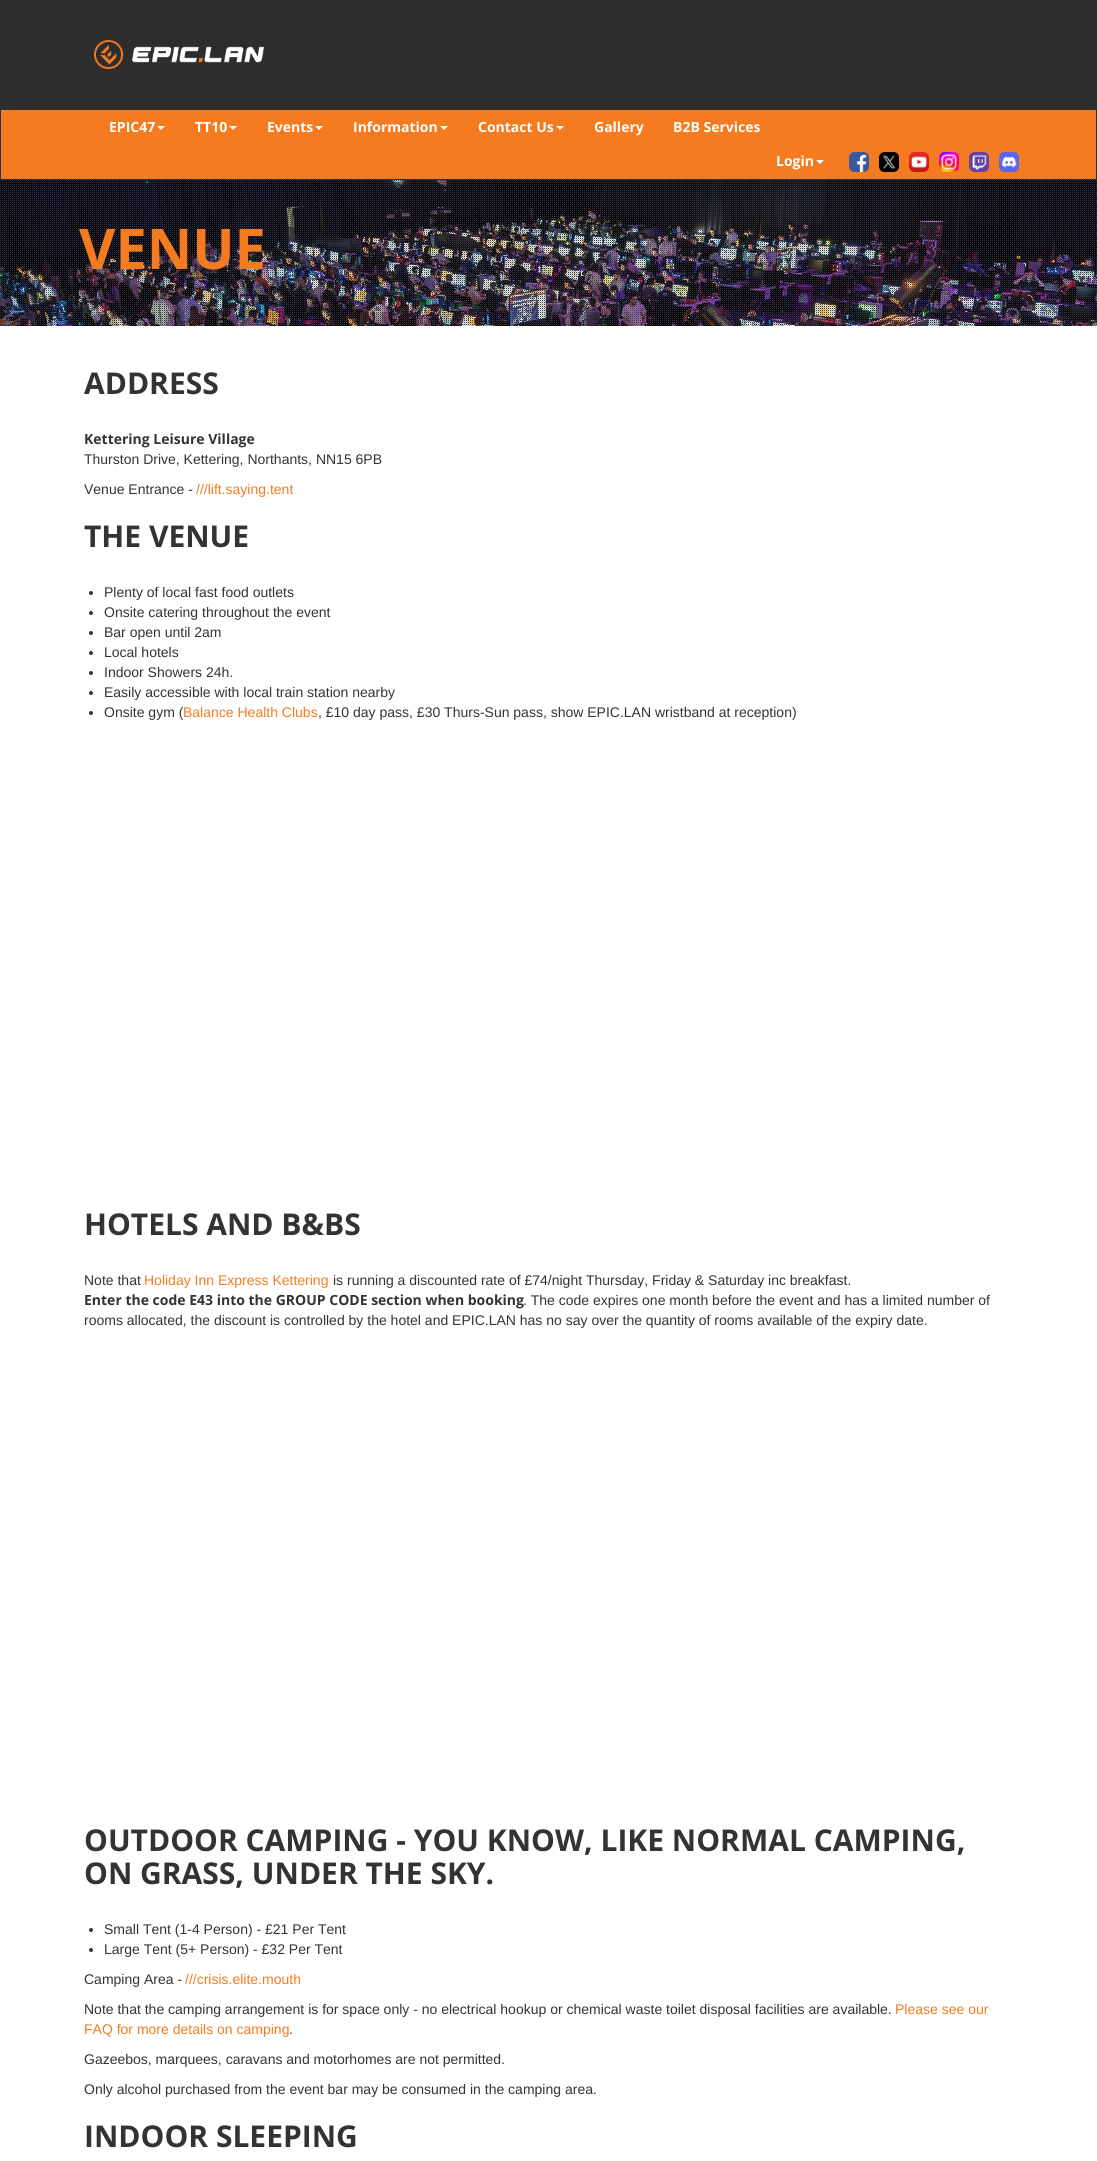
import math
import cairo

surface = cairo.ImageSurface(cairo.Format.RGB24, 1097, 2161)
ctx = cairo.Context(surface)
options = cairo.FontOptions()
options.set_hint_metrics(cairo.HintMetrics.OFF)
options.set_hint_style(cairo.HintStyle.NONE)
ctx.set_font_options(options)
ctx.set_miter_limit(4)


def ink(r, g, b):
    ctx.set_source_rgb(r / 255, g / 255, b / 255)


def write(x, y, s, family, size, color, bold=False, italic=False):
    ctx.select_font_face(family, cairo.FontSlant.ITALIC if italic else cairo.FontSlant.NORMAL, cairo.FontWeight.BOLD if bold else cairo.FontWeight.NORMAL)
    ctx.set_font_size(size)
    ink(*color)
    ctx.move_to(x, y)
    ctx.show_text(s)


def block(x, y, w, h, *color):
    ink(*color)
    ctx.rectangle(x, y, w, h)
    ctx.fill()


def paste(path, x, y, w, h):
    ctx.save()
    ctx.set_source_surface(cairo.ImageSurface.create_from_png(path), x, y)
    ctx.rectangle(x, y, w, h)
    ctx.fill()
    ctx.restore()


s1 = dict(family="Open Sans", size=14, color=(255, 255, 255), bold=True)
s2 = dict(family="Open Sans", size=56, color=(244, 123, 32), bold=True)
s3 = dict(family="Open Sans", size=30, color=(51, 51, 51), bold=True)
s4 = dict(family="Open Sans", size=14, color=(51, 51, 51), bold=True)
s5 = dict(family="Liberation Sans", size=14, color=(51, 51, 51))
s6 = dict(family="Liberation Sans", size=14, color=(244, 123, 32))

ink(255, 255, 255)
ctx.paint()
block(0, 0, 1097, 109, 45, 45, 45)
paste("pic1.png", 94, 40, 170, 29)
ink(244, 123, 32)
ctx.rectangle(0.5, 109.5, 1096, 70)
ctx.fill_preserve()
ink(45, 45, 45)
ctx.set_line_width(1)
ctx.stroke()
write(109, 132, "EPIC47", **s1)
ctx.new_path()
ctx.move_to(157, 126)
ctx.line_to(165, 126)
ctx.line_to(161, 130)
ctx.close_path()
ctx.fill()
write(195, 132, "TT10", **s1)
ctx.new_path()
ctx.move_to(229, 126)
ctx.line_to(237, 126)
ctx.line_to(233, 130)
ctx.close_path()
ctx.fill()
write(267, 132, "Events", **s1)
ctx.new_path()
ctx.move_to(315, 126)
ctx.line_to(323, 126)
ctx.line_to(319, 130)
ctx.close_path()
ctx.fill()
write(353, 132, "Information", **s1)
ctx.new_path()
ctx.move_to(440, 126)
ctx.line_to(448, 126)
ctx.line_to(444, 130)
ctx.close_path()
ctx.fill()
write(478, 132, "Contact Us", **s1)
ctx.new_path()
ctx.move_to(556, 126)
ctx.line_to(564, 126)
ctx.line_to(560, 130)
ctx.close_path()
ctx.fill()
write(594, 132, "Gallery", **s1)
write(673, 132, "B2B Services", **s1)
write(776, 166, "Login", **s1)
ctx.new_path()
ctx.move_to(816, 160)
ctx.line_to(824, 160)
ctx.line_to(820, 164)
ctx.close_path()
ctx.fill()
paste("pic2.png", 849, 152, 20, 20)
paste("pic3.png", 879, 152, 20, 20)
paste("pic4.png", 909, 152, 20, 20)
paste("pic5.png", 939, 152, 20, 20)
paste("pic6.png", 969, 152, 20, 20)
paste("pic7.png", 999, 152, 20, 20)
paste("pic8.png", 0, 180, 1097, 146)
paste("pic9.png", 0, 180, 1097, 146)
write(79, 269, "VENUE", **s2)
write(84, 394, "ADDRESS", **s3)
write(84, 444, "Kettering Leisure Village", **s4)
write(84, 464, "Thurston Drive, Kettering, Northants, NN15 6PB", **s5)
write(84, 494, "Venue Entrance -", **s5)
write(196, 494, "///lift.saying.tent", **s6)
write(84, 547, "THE VENUE", **s3)
ctx.new_path()
ctx.arc(91, 593, 2, 0, 2 * math.pi)
ctx.fill()
write(104, 597, "Plenty of local fast food outlets", **s5)
ctx.new_path()
ctx.arc(91, 613, 2, 0, 2 * math.pi)
ctx.fill()
write(104, 617, "Onsite catering throughout the event", **s5)
ctx.new_path()
ctx.arc(91, 633, 2, 0, 2 * math.pi)
ctx.fill()
write(104, 637, "Bar open until 2am", **s5)
ctx.new_path()
ctx.arc(91, 653, 2, 0, 2 * math.pi)
ctx.fill()
write(104, 657, "Local hotels", **s5)
ctx.new_path()
ctx.arc(91, 673, 2, 0, 2 * math.pi)
ctx.fill()
write(104, 677, "Indoor Showers 24h.", **s5)
ctx.new_path()
ctx.arc(91, 693, 2, 0, 2 * math.pi)
ctx.fill()
write(104, 697, "Easily accessible with local train station nearby", **s5)
ctx.new_path()
ctx.arc(91, 713, 2, 0, 2 * math.pi)
ctx.fill()
write(104, 717, "Onsite gym (", **s5)
write(183, 717, "Balance Health Clubs", **s6)
write(318, 717, ", £10 day pass, £30 Thurs-Sun pass, show EPIC.LAN wristband at reception)", **s5)
write(84, 1235, "HOTELS AND B&BS", **s3)
write(84, 1285, "Note that", **s5)
write(144, 1285, "Holiday Inn Express Kettering", **s6)
write(333, 1285, "is running a discounted rate of £74/night Thursday, Friday & Saturday inc breakfast.", **s5)
write(84, 1305, "Enter the code E43 into the GROUP CODE section when booking", **s4)
write(523, 1305, ". The code expires one month before the event and has a limited number of", **s5)
write(84, 1325, "rooms allocated, the discount is controlled by the hotel and EPIC.LAN has no say over the quantity of rooms available of the expiry date.", **s5)
write(84, 1851, "OUTDOOR CAMPING - YOU KNOW, LIKE NORMAL CAMPING,", **s3)
write(84, 1884, "ON GRASS, UNDER THE SKY.", **s3)
ctx.new_path()
ctx.arc(91, 1930, 2, 0, 2 * math.pi)
ctx.fill()
write(104, 1934, "Small Tent (1-4 Person) - £21 Per Tent", **s5)
ctx.new_path()
ctx.arc(91, 1950, 2, 0, 2 * math.pi)
ctx.fill()
write(104, 1954, "Large Tent (5+ Person) - £32 Per Tent", **s5)
write(84, 1984, "Camping Area -", **s5)
write(185, 1984, "///crisis.elite.mouth", **s6)
write(84, 2014, "Note that the camping arrangement is for space only - no electrical hookup or chemical waste toilet disposal facilities are available.", **s5)
write(895, 2014, "Please see our", **s6)
write(84, 2034, "FAQ for more details on camping", **s6)
write(289, 2034, ".", **s5)
write(84, 2064, "Gazeebos, marquees, caravans and motorhomes are not permitted.", **s5)
write(84, 2094, "Only alcohol purchased from the event bar may be consumed in the camping area.", **s5)
write(84, 2147, "INDOOR SLEEPING", **s3)
surface.write_to_png("screenshot.png")
